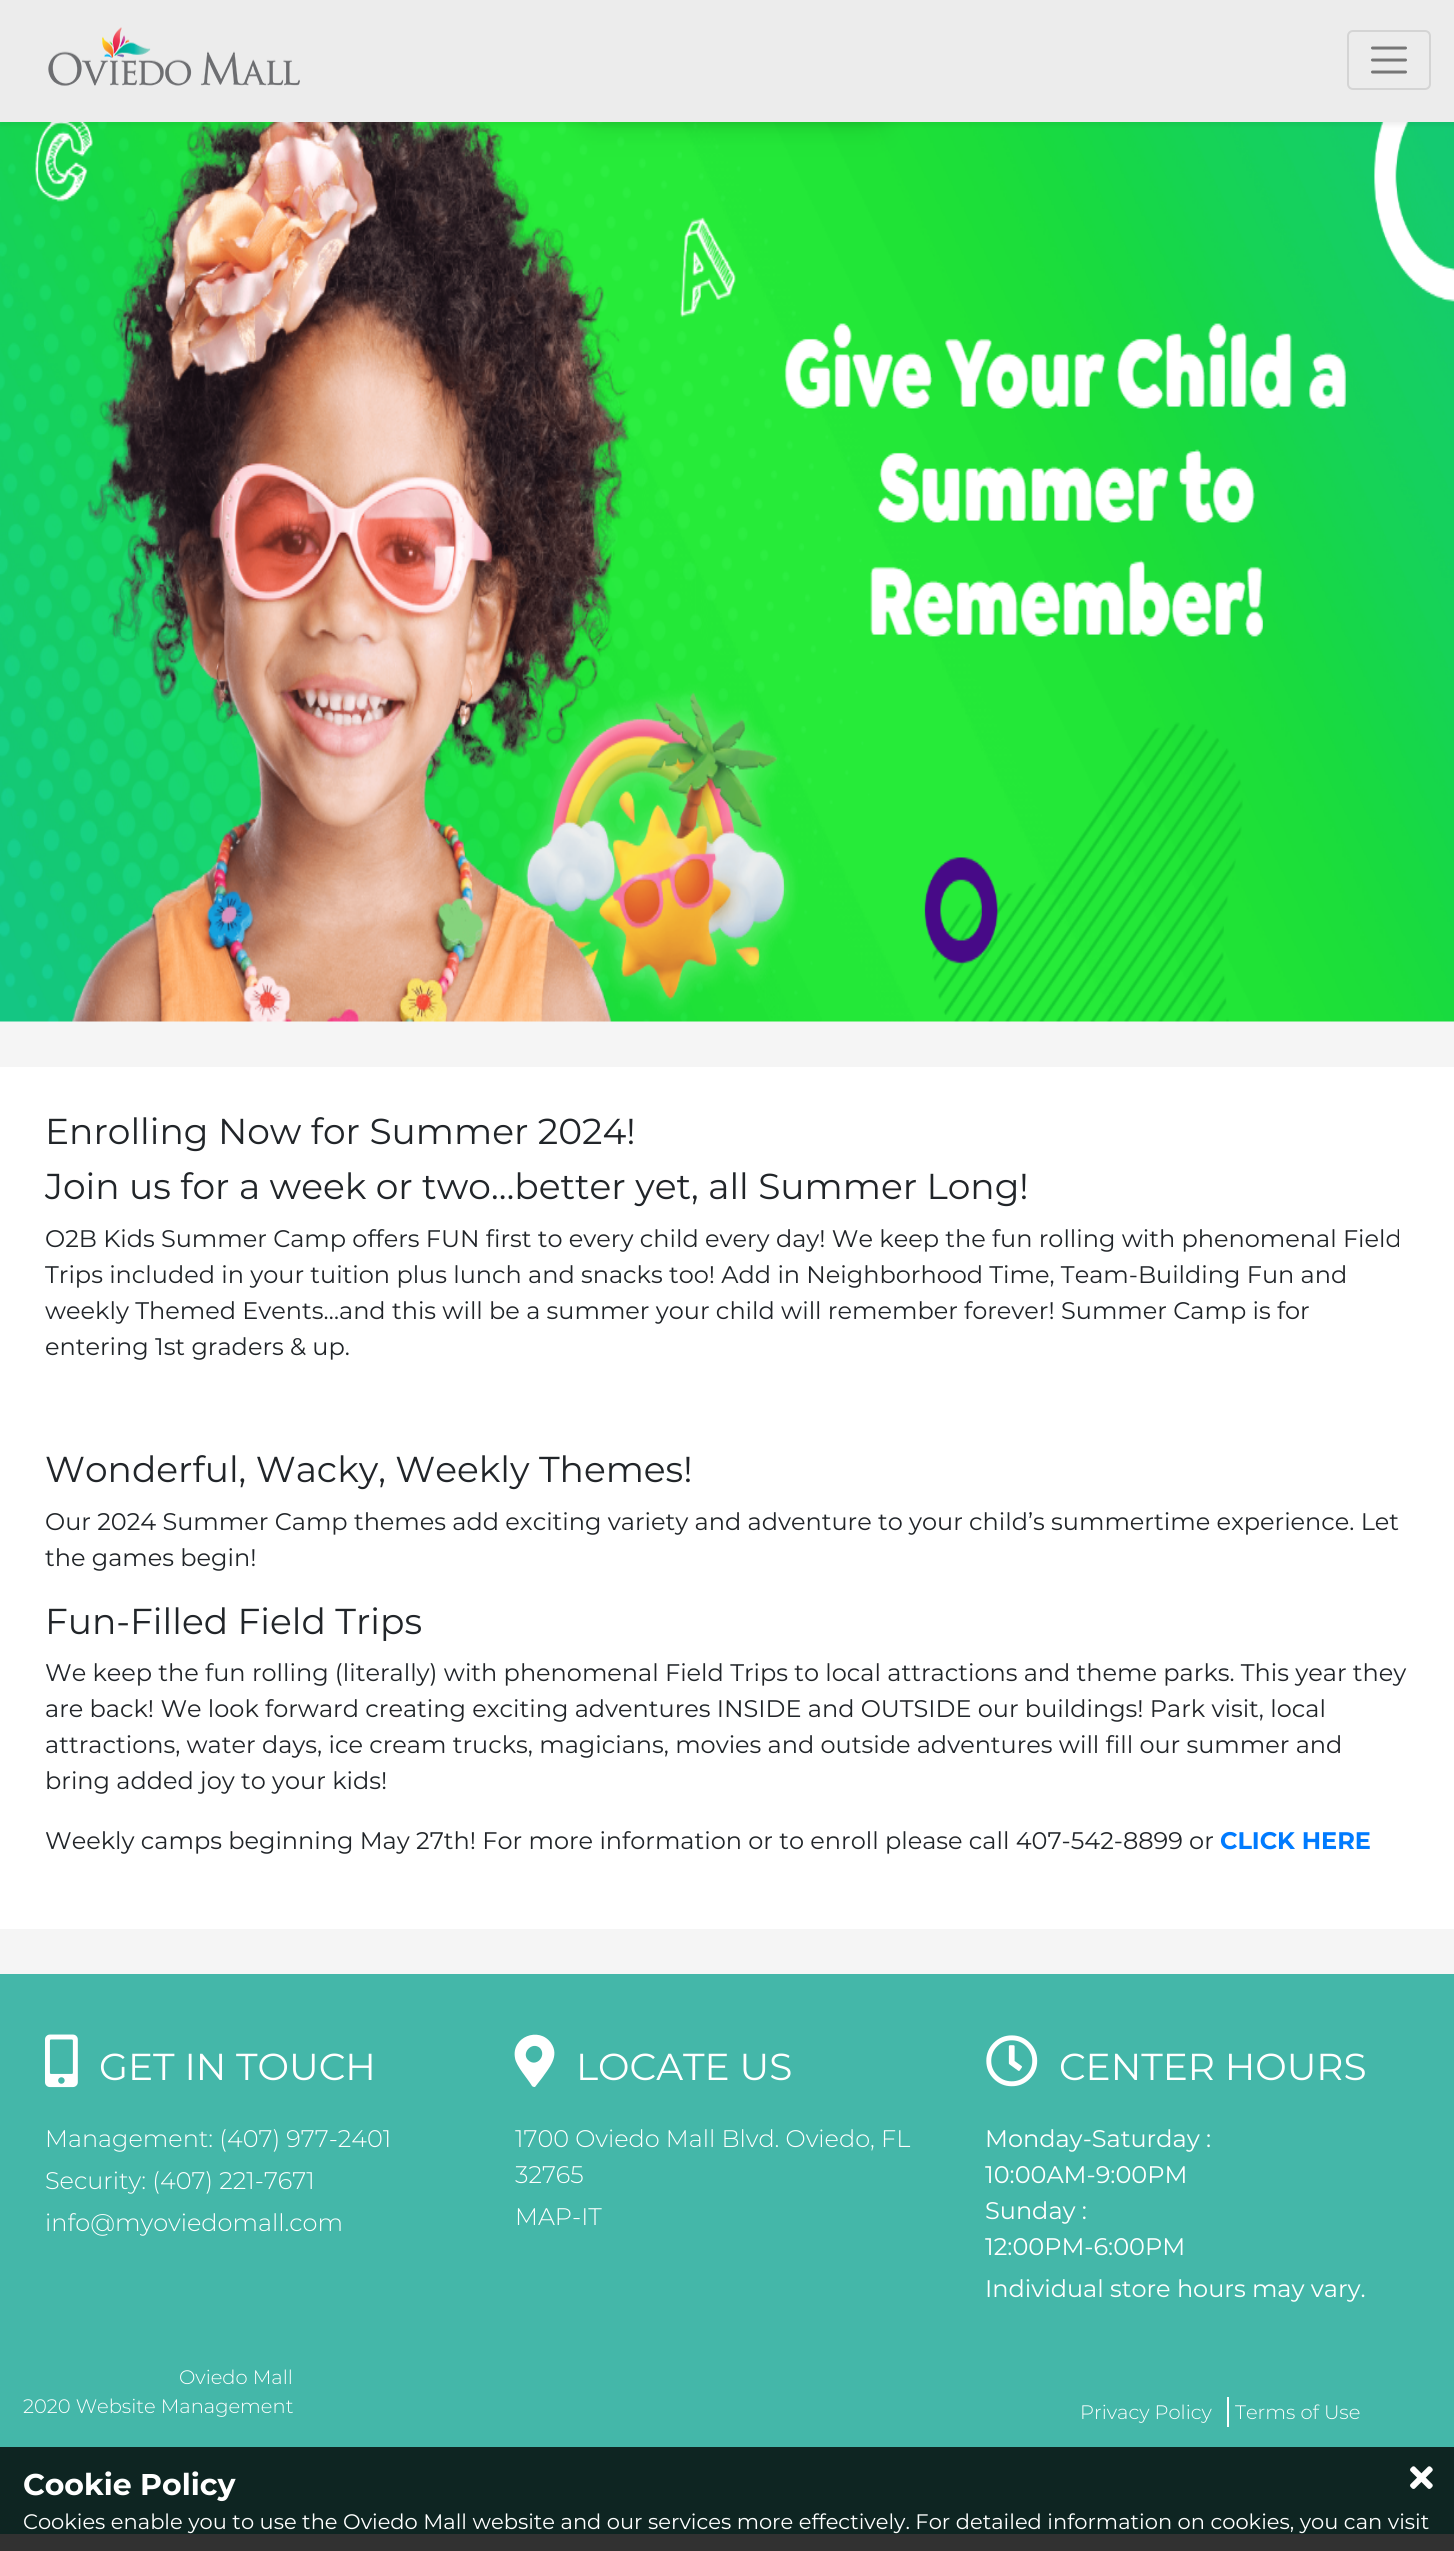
import math
import cairo

surface = cairo.ImageSurface(cairo.Format.RGB24, 1454, 2551)
ctx = cairo.Context(surface)
options = cairo.FontOptions()
options.set_hint_metrics(cairo.HintMetrics.OFF)
options.set_hint_style(cairo.HintStyle.NONE)
ctx.set_font_options(options)
ctx.set_miter_limit(4)


def ink(r, g, b):
    ctx.set_source_rgb(r / 255, g / 255, b / 255)


def write(x, y, s, family, size, color, bold=False, italic=False):
    ctx.select_font_face(family, cairo.FontSlant.ITALIC if italic else cairo.FontSlant.NORMAL, cairo.FontWeight.BOLD if bold else cairo.FontWeight.NORMAL)
    ctx.set_font_size(size)
    ink(*color)
    ctx.move_to(x, y)
    ctx.show_text(s)


def block(x, y, w, h, *color):
    ink(*color)
    ctx.rectangle(x, y, w, h)
    ctx.fill()


def round_path(x, y, w, h, r):
    ctx.new_sub_path()
    for i, (u, v) in enumerate([(x + w - r, y + h - r), (x + r, y + h - r), (x + r, y + r), (x + w - r, y + r)]):
        ctx.arc(u, v, r, i * math.pi / 2, (i + 1) * math.pi / 2)
    ctx.close_path()


def blur_box(x, y, w, h, r, blur, alpha):
    ctx.push_group_with_content(cairo.Content.ALPHA)
    ctx.set_operator(cairo.Operator.SOURCE)
    for i in range(15, -16, -2):
        e = blur * i / 6
        if min(w, h) + 2 * e > 0:
            ctx.set_source_rgba(0, 0, 0, alpha * math.erfc((i - 1) / 8.5) / 2)
            round_path(x - e, y - e, w + 2 * e, h + 2 * e, max(0, min(r + e + blur * .6, min(w, h) / 2 + e)))
            ctx.fill()
    ctx.mask(ctx.pop_group())


def paste(path, x, y, w, h):
    ctx.save()
    ctx.set_source_surface(cairo.ImageSurface.create_from_png(path), x, y)
    ctx.rectangle(x, y, w, h)
    ctx.fill()
    ctx.restore()


s1 = dict(family="Montserrat", size=36, color=(33, 37, 41))
s2 = dict(family="Montserrat", size=24, color=(33, 37, 41))
s3 = dict(family="Montserrat", size=24, color=(0, 123, 255), bold=True)
s4 = dict(family="Montserrat", size=37.5, color=(255, 255, 255))
s5 = dict(family="Montserrat Light", size=24, color=(255, 255, 255))
s6 = dict(family="Montserrat", size=24, color=(255, 255, 255))
s7 = dict(family="Montserrat Light", size=19.5, color=(255, 255, 255))
s8 = dict(family="Montserrat", size=30, color=(255, 255, 255), bold=True)
s9 = dict(family="Montserrat", size=21, color=(255, 255, 255))

ink(245, 245, 245)
ctx.paint()
block(0, 2534, 1454, 17, 49, 49, 49)
paste("pic2.png", 0, 122, 1454, 900)
ink(0, 0, 0)
blur_box(0, 3, 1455, 122, 0, 3, 0.07)
block(0, 0, 1454, 122, 236, 236, 236)
paste("pic1.png", 48, 27, 252, 59)
round_path(1348, 31, 82, 58, 5)
ink(212, 212, 212)
ctx.stroke()
ctx.new_path()
ctx.move_to(1372.5, 48)
ctx.line_to(1405.5, 48)
ctx.move_to(1372.5, 60)
ctx.line_to(1405.5, 60)
ctx.move_to(1372.5, 72)
ctx.line_to(1405.5, 72)
ink(118, 118, 118)
ctx.set_line_width(3)
ctx.set_line_cap(cairo.LineCap.ROUND)
ctx.stroke()
block(0, 1067, 1454, 862, 255, 255, 255)
write(45, 1144, "Enrolling Now for Summer 2024!", **s1)
write(45, 1199, "Join us for a week or two…better yet, all Summer Long!", **s1)
write(45, 1247, "O2B Kids Summer Camp offers FUN first to every child every day! We keep the fun rolling with phenomenal Field", **s2)
write(45, 1283, "Trips included in your tuition plus lunch and snacks too! Add in Neighborhood Time, Team-Building Fun and", **s2)
write(45, 1319, "weekly Themed Events…and this will be a summer your child will remember forever! Summer Camp is for", **s2)
write(45, 1355, "entering 1st graders & up.", **s2)
write(45, 1482, "Wonderful, Wacky, Weekly Themes!", **s1)
write(45, 1530, "Our 2024 Summer Camp themes add exciting variety and adventure to your child’s summertime experience. Let", **s2)
write(45, 1566, "the games begin!", **s2)
write(45, 1634, "Fun-Filled Field Trips", **s1)
write(45, 1681, "We keep the fun rolling (literally) with phenomenal Field Trips to local attractions and theme parks. This year they", **s2)
write(45, 1717, "are back! We look forward creating exciting adventures INSIDE and OUTSIDE our buildings! Park visit, local", **s2)
write(45, 1753, "attractions, water days, ice cream trucks, magicians, movies and outside adventures will fill our summer and", **s2)
write(45, 1789, "bring added joy to your kids!", **s2)
write(45, 1849, "Weekly camps beginning May 27th! For more information or to enroll please call 407-542-8899 or", **s2)
write(1220, 1849, "CLICK HERE", **s3)
block(0, 1974, 1454, 473, 68, 183, 169)
block(0, 2447, 1454, 87, 14, 37, 34)
paste("pic3.png", 45, 2034, 33, 54)
write(99, 2080, "GET IN TOUCH", **s4)
write(45, 2147, "Management: (407) 977-2401", **s5)
write(45, 2189, "Security: (407) 221-7671", **s5)
write(45, 2231, "info@myoviedomall.com", **s5)
ctx.new_path()
ctx.move_to(532, 2086)
ctx.curve_to(528, 2079, 516, 2066, 515, 2058)
ctx.curve_to(511, 2037, 539, 2026, 551, 2043)
ctx.curve_to(560, 2056, 549, 2068, 542, 2078)
ctx.line_to(535, 2087)
ctx.curve_to(534, 2087, 533, 2087, 532, 2086)
ctx.close_path()
ctx.move_to(528, 2060)
ctx.curve_to(536, 2068, 547, 2056, 540, 2048)
ctx.curve_to(532, 2041, 521, 2053, 528, 2060)
ctx.close_path()
ctx.fill()
write(576, 2080, "LOCATE US", **s4)
write(515, 2147, "1700 Oviedo Mall Blvd. Oviedo, FL", **s5)
write(515, 2183, "32765", **s5)
write(515, 2225, "MAP-IT", **s5)
paste("pic4.png", 986, 2035, 52, 52)
write(1059, 2080, "CENTER HOURS", **s4)
write(985, 2147, "Monday-Saturday :", **s6)
write(985, 2183, "10:00AM-9:00PM", **s6)
write(985, 2219, "Sunday :", **s6)
write(985, 2255, "12:00PM-6:00PM", **s6)
write(985, 2297, "Individual store hours may vary.", **s6)
write(179, 2384, "Oviedo Mall", **s7)
write(23, 2413, "2020 Website Management", **s7)
block(1227, 2397, 2, 30, 255, 255, 255)
write(1080, 2419, "Privacy Policy", **s7)
write(1235, 2419, "Terms of Use", **s7)
write(23, 2495, "Cookie Policy", **s8)
paste("pic5.png", 1410, 2466, 23, 23)
write(23, 2529, "Cookies enable you to use the Oviedo Mall website and our services more effectively. For detailed information on cookies, you can visit", **s9)
surface.write_to_png("screenshot.png")
